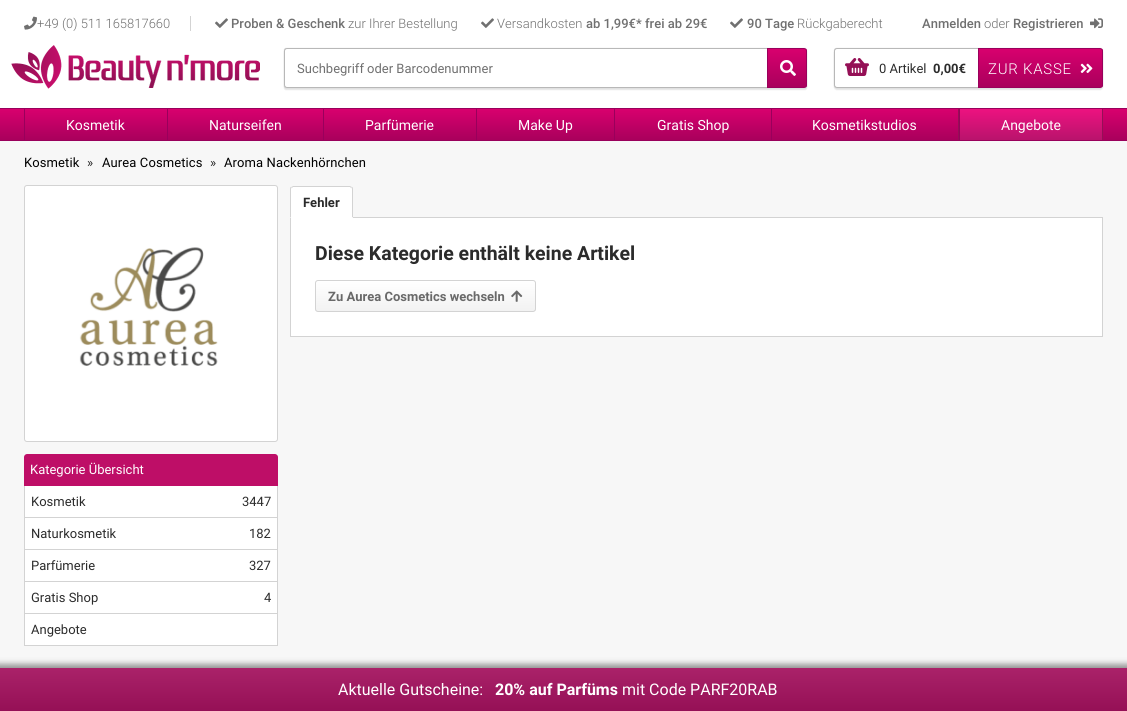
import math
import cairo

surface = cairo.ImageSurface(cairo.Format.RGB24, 1127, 711)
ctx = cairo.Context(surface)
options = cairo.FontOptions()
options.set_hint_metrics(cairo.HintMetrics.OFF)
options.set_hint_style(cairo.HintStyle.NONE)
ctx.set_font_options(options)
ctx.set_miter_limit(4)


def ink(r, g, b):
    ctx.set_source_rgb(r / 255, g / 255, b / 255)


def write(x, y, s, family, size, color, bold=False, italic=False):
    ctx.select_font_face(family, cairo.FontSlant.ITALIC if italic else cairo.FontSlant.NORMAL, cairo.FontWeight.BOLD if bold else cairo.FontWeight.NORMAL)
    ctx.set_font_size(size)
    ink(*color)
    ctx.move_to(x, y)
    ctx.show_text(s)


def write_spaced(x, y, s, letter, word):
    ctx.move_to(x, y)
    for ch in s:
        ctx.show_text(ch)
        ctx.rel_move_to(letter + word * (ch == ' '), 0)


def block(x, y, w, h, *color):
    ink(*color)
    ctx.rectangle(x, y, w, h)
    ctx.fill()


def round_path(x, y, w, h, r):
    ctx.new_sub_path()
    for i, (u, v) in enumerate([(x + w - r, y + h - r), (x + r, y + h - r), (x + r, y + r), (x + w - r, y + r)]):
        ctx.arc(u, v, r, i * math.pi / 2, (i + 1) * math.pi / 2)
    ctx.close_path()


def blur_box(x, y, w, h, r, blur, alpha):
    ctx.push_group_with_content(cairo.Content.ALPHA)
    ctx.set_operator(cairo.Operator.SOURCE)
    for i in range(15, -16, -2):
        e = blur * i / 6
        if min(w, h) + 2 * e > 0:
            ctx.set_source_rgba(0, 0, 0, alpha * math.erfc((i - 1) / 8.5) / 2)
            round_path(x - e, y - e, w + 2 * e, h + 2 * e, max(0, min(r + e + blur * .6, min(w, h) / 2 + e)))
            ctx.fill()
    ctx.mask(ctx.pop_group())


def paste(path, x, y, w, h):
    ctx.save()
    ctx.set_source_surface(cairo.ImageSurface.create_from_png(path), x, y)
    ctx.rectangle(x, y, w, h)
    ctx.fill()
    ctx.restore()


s1 = dict(family="Roboto Light", size=13, color=(112, 112, 112))
s2 = dict(family="Roboto Medium", size=13, color=(112, 112, 112))
s3 = dict(family="Roboto", size=13, color=(112, 112, 112))
s4 = dict(family="Roboto", size=13, color=(43, 43, 43))
s5 = dict(family="Roboto", size=13, color=(43, 43, 43), bold=True)
s6 = dict(family="Roboto", size=14, color=(255, 255, 255))
s7 = dict(family="Roboto", size=19.5, color=(43, 43, 43), bold=True)
s8 = dict(family="Roboto", size=13, color=(105, 105, 105), bold=True)
s9 = dict(family="Roboto", size=13, color=(255, 255, 255))
s10 = dict(family="Roboto", size=16, color=(255, 255, 255))
s11 = dict(family="Roboto", size=16, color=(255, 255, 255), bold=True)

ink(247, 247, 247)
ctx.paint()
block(0, 0, 1127, 108, 255, 255, 255)
block(190, 16, 1, 15, 211, 211, 211)
paste("pic1.png", 24, 16, 13, 14)
write(37, 28, "+49 (0) 511 165817660", **s1)
paste("pic2.png", 215, 18, 13, 10)
write(231, 28, "Proben & Geschenk", **s2)
write(348, 28, "zur Ihrer Bestellung", **s1)
paste("pic2.png", 481, 18, 13, 10)
write(497, 28, "Versandkosten", **s1)
write(586, 28, "ab 1,99€* frei ab 29€", **s2)
paste("pic2.png", 730, 18, 13, 10)
write(747, 28, "90 Tage", **s2)
write(797, 28, "Rückgaberecht", **s1)
write(922, 28, "Anmelden", **s2)
write(984, 28, "oder", **s1)
write(1013, 28, "Registrieren", **s2)
paste("pic3.png", 1090, 18, 13, 11)
paste("pic4.png", 11, 45, 249, 44)
ink(0, 0, 0)
blur_box(284, 48, 523, 40, 2, 0.5, 0.1)
blur_box(284, 50, 523, 40, 2, 0.5, 0.1)
ink(255, 255, 255)
ctx.new_path()
ctx.move_to(287, 48)
ctx.line_to(767, 48)
ctx.line_to(767, 88)
ctx.line_to(287, 88)
ctx.curve_to(285.5, 88, 284, 86.5, 284, 85)
ctx.line_to(284, 51)
ctx.curve_to(284, 49.5, 285.5, 48, 287, 48)
ctx.close_path()
ctx.fill()
ink(184, 184, 184)
ctx.set_fill_rule(cairo.FillRule.EVEN_ODD)
ctx.new_path()
ctx.move_to(287, 48)
ctx.line_to(767, 48)
ctx.line_to(767, 88)
ctx.line_to(287, 88)
ctx.curve_to(285, 88, 284, 87, 284, 85)
ctx.line_to(284, 51)
ctx.curve_to(284, 49, 285, 48, 287, 48)
ctx.close_path()
ctx.move_to(287, 49)
ctx.line_to(767, 49)
ctx.line_to(767, 87)
ctx.line_to(287, 87)
ctx.curve_to(286, 87, 285, 86, 285, 85)
ctx.line_to(285, 51)
ctx.curve_to(285, 50, 286, 49, 287, 49)
ctx.close_path()
ctx.fill()
write(297, 73, "Suchbegriff oder Barcodenummer", **s3)
ctx.save()
ctx.set_fill_rule(cairo.FillRule.WINDING)
ctx.new_path()
ctx.move_to(767, 48)
ctx.line_to(804, 48)
ctx.curve_to(805.5, 48, 807, 49.5, 807, 51)
ctx.line_to(807, 85)
ctx.curve_to(807, 86.5, 805.5, 88, 804, 88)
ctx.line_to(767, 88)
ctx.close_path()
ctx.clip()
gradient = cairo.LinearGradient(787, 49, 787, 87)
gradient.add_color_stop_rgba(0, 0.847, 0, 0.431, 1)
gradient.add_color_stop_rgba(1, 0.663, 0, 0.361, 1)
ctx.set_source(gradient)
ctx.rectangle(768, 49, 39, 38)
ctx.fill()
ctx.restore()
ctx.new_path()
ctx.move_to(767.5, 48.5)
ctx.line_to(804, 48.5)
ctx.curve_to(805.5, 48.5, 806.5, 49.5, 806.5, 51)
ctx.line_to(806.5, 85)
ctx.curve_to(806.5, 86.5, 805.5, 87.5, 804, 87.5)
ctx.line_to(767.5, 87.5)
ctx.close_path()
ink(153, 0, 92)
ctx.set_line_width(1)
ctx.stroke()
paste("pic5.png", 780, 60, 16, 16)
ink(0, 0, 0)
blur_box(834, 48, 269, 40, 3, 0.5, 0.1)
blur_box(834, 50, 269, 40, 3, 0.5, 0.1)
ink(255, 255, 255)
ctx.new_path()
ctx.move_to(837, 48)
ctx.line_to(978, 48)
ctx.line_to(978, 88)
ctx.line_to(837, 88)
ctx.curve_to(835.5, 88, 834, 86.5, 834, 85)
ctx.line_to(834, 51)
ctx.curve_to(834, 49.5, 835.5, 48, 837, 48)
ctx.close_path()
ctx.fill()
paste("pic6.png", 845, 58, 24, 18)
ink(184, 184, 184)
ctx.set_fill_rule(cairo.FillRule.WINDING)
ctx.new_path()
ctx.move_to(837, 48)
ctx.curve_to(835, 48, 834, 49, 834, 51)
ctx.line_to(834, 85)
ctx.curve_to(834, 87, 835, 88, 837, 88)
ctx.line_to(978, 88)
ctx.line_to(978, 87)
ctx.line_to(837, 87)
ctx.curve_to(836, 87, 835, 86, 835, 85)
ctx.line_to(835, 51)
ctx.curve_to(835, 50, 836, 49, 837, 49)
ctx.line_to(978, 49)
ctx.line_to(978, 48)
ctx.close_path()
ctx.fill()
write(879, 73, "0 Artikel", **s4)
write(933, 73, "0,00€", **s5)
ctx.save()
round_path(834, 48, 269, 40, 3)
ctx.clip()
ctx.new_path()
ctx.move_to(978, 48)
ctx.line_to(1100, 48)
ctx.curve_to(1101.5, 48, 1103, 49.5, 1103, 51)
ctx.line_to(1103, 85)
ctx.curve_to(1103, 86.5, 1101.5, 88, 1100, 88)
ctx.line_to(978, 88)
ctx.close_path()
ctx.clip()
gradient = cairo.LinearGradient(1041, 49, 1041, 87)
gradient.add_color_stop_rgba(0, 0.847, 0, 0.431, 1)
gradient.add_color_stop_rgba(1, 0.663, 0, 0.361, 1)
ctx.set_source(gradient)
ctx.rectangle(979, 49, 124, 38)
ctx.fill()
ctx.restore()
ctx.new_path()
ctx.move_to(978.5, 48.5)
ctx.line_to(1100, 48.5)
ctx.curve_to(1101.5, 48.5, 1102.5, 49.5, 1102.5, 51)
ctx.line_to(1102.5, 85)
ctx.curve_to(1102.5, 86.5, 1101.5, 87.5, 1100, 87.5)
ctx.line_to(978.5, 87.5)
ctx.close_path()
ink(153, 0, 92)
ctx.stroke()
ctx.select_font_face("Roboto Light")
ctx.set_font_size(15)
ink(255, 255, 255)
write_spaced(988, 74, "ZUR KASSE", 0.75, 0)
paste("pic7.png", 1080, 63, 13, 10)
gradient = cairo.LinearGradient(564, 109, 564, 140)
gradient.add_color_stop_rgba(0, 0.847, 0, 0.431, 1)
gradient.add_color_stop_rgba(1, 0.663, 0, 0.361, 1)
ctx.set_source(gradient)
ctx.rectangle(0, 109, 1127, 31)
ctx.fill()
block(0, 108, 1127, 1, 153, 0, 92)
block(0, 140, 1127, 1, 153, 0, 92)
block(24, 109, 1, 31, 153, 0, 92)
write(66, 130, "Kosmetik", **s6)
block(167, 109, 1, 31, 153, 0, 92)
write(209, 130, "Naturseifen", **s6)
block(323, 109, 1, 31, 153, 0, 92)
write(365, 130, "Parfümerie", **s6)
block(476, 109, 1, 31, 153, 0, 92)
write(518, 130, "Make Up", **s6)
block(614, 109, 1, 31, 153, 0, 92)
write(657, 130, "Gratis Shop", **s6)
block(958, 109, 1, 31, 149, 16, 86)
block(771, 109, 1, 31, 153, 0, 92)
write(812, 130, "Kosmetikstudios", **s6)
gradient = cairo.LinearGradient(1031, 109, 1031, 140)
gradient.add_color_stop_rgba(0, 0.929, 0.071, 0.502, 1)
gradient.add_color_stop_rgba(1, 0.725, 0.075, 0.424, 1)
ctx.set_source(gradient)
ctx.rectangle(960, 109, 142, 31)
ctx.fill()
block(1102, 109, 1, 31, 149, 16, 86)
block(959, 109, 1, 31, 153, 0, 92)
write(1001, 130, "Angebote", **s6)
ctx.set_font_size(13)
ink(0, 0, 0)
write_spaced(24, 167, "Kosmetik", 0.1, 0)
ink(43, 43, 43)
write_spaced(87, 167, "»", 0.1, 0)
ink(0, 0, 0)
write_spaced(102, 167, "Aurea Cosmetics", 0.1, 0)
ink(43, 43, 43)
write_spaced(210, 167, "»", 0.1, 0)
ink(0, 0, 0)
write_spaced(224, 167, "Aroma Nackenhörnchen", 0.1, 0)
ink(255, 255, 255)
ctx.new_path()
ctx.move_to(293, 186)
ctx.line_to(350, 186)
ctx.curve_to(351.5, 186, 353, 187.5, 353, 189)
ctx.line_to(353, 218)
ctx.line_to(290, 218)
ctx.line_to(290, 189)
ctx.curve_to(290, 187.5, 291.5, 186, 293, 186)
ctx.close_path()
ctx.fill()
ink(211, 211, 211)
ctx.new_path()
ctx.move_to(293, 186)
ctx.line_to(291, 187)
ctx.line_to(292, 188)
ctx.line_to(293, 187)
ctx.line_to(350, 187)
ctx.line_to(351, 188)
ctx.line_to(352, 187)
ctx.line_to(350, 186)
ctx.close_path()
ctx.fill()
ctx.new_path()
ctx.move_to(353, 218)
ctx.line_to(353, 189)
ctx.curve_to(353, 188, 353, 187, 352, 187)
ctx.line_to(351.5, 187.5)
ctx.line_to(352, 189)
ctx.line_to(352, 217)
ctx.close_path()
ctx.fill()
ink(255, 255, 255)
ctx.new_path()
ctx.move_to(353, 218)
ctx.line_to(352, 217)
ctx.line_to(291, 217)
ctx.line_to(290, 218)
ctx.close_path()
ctx.fill()
ink(211, 211, 211)
ctx.new_path()
ctx.move_to(290, 218)
ctx.line_to(291, 217)
ctx.line_to(291, 189)
ctx.line_to(291.5, 187.5)
ctx.line_to(291, 187)
ctx.curve_to(290, 187, 290, 188, 290, 189)
ctx.close_path()
ctx.fill()
write(303, 207, "Fehler", **s5)
block(353, 217, 750, 1, 211, 211, 211)
block(291, 218, 811, 118, 255, 255, 255)
block(1102, 218, 1, 119, 211, 211, 211)
block(290, 336, 813, 1, 211, 211, 211)
block(290, 218, 1, 119, 211, 211, 211)
write(315, 260, "Diese Kategorie enthält keine Artikel", **s7)
ctx.save()
round_path(315, 280, 221, 32, 3)
ctx.clip()
gradient = cairo.LinearGradient(426, 281, 426, 311)
gradient.add_color_stop_rgba(0, 1, 1, 1, 1)
gradient.add_color_stop_rgba(1, 0.949, 0.949, 0.949, 1)
ctx.set_source(gradient)
ctx.rectangle(315, 281, 221, 30)
ctx.fill()
ctx.restore()
round_path(315.5, 280.5, 220, 31, 2.5)
ink(211, 211, 211)
ctx.stroke()
write(328, 301, "Zu Aurea Cosmetics wechseln", **s8)
paste("pic8.png", 511, 290, 12, 12)
ink(255, 255, 255)
round_path(24.5, 185.5, 253, 256, 2.5)
ctx.fill_preserve()
ink(211, 211, 211)
ctx.stroke()
paste("pic9.png", 79, 247, 139, 119)
ink(190, 14, 103)
ctx.new_path()
ctx.move_to(27, 454)
ctx.line_to(275, 454)
ctx.curve_to(276.5, 454, 278, 455.5, 278, 457)
ctx.line_to(278, 486)
ctx.line_to(24, 486)
ctx.line_to(24, 457)
ctx.curve_to(24, 455.5, 25.5, 454, 27, 454)
ctx.close_path()
ctx.fill()
write(30, 474, "Kategorie Übersicht", **s9)
block(25, 486, 252, 31, 255, 255, 255)
block(277, 486, 1, 160, 211, 211, 211)
block(24, 517, 254, 1, 211, 211, 211)
block(24, 486, 1, 32, 211, 211, 211)
write(31, 506, "Kosmetik", **s4)
write(242, 506, "3447", **s4)
block(25, 518, 252, 31, 255, 255, 255)
block(24, 549, 254, 1, 211, 211, 211)
block(24, 518, 1, 32, 211, 211, 211)
write(31, 538, "Naturkosmetik", **s4)
write(249, 538, "182", **s4)
block(25, 550, 252, 31, 255, 255, 255)
block(24, 581, 254, 1, 211, 211, 211)
block(24, 550, 1, 32, 211, 211, 211)
write(31, 570, "Parfümerie", **s4)
write(249, 570, "327", **s4)
block(25, 582, 252, 31, 255, 255, 255)
block(24, 613, 254, 1, 211, 211, 211)
block(24, 582, 1, 32, 211, 211, 211)
write(31, 602, "Gratis Shop", **s4)
write(264, 602, "4", **s4)
block(25, 614, 252, 31, 255, 255, 255)
block(24, 645, 254, 1, 211, 211, 211)
block(24, 614, 1, 32, 211, 211, 211)
write(31, 634, "Angebote", **s4)
ink(0, 0, 0)
blur_box(-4, 664, 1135, 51, 0, 3, 0.4)
gradient = cairo.LinearGradient(564, 668, 564, 711)
gradient.add_color_stop_rgba(0, 0.667, 0.133, 0.412, 1)
gradient.add_color_stop_rgba(1, 0.584, 0.063, 0.337, 1)
ctx.set_source(gradient)
ctx.rectangle(0, 668, 1127, 43)
ctx.fill()
write(338, 695, "Aktuelle Gutscheine:", **s10)
write(495, 695, "20% auf Parfüms", **s11)
write(622, 695, "mit Code PARF20RAB", **s10)
surface.write_to_png("screenshot.png")
